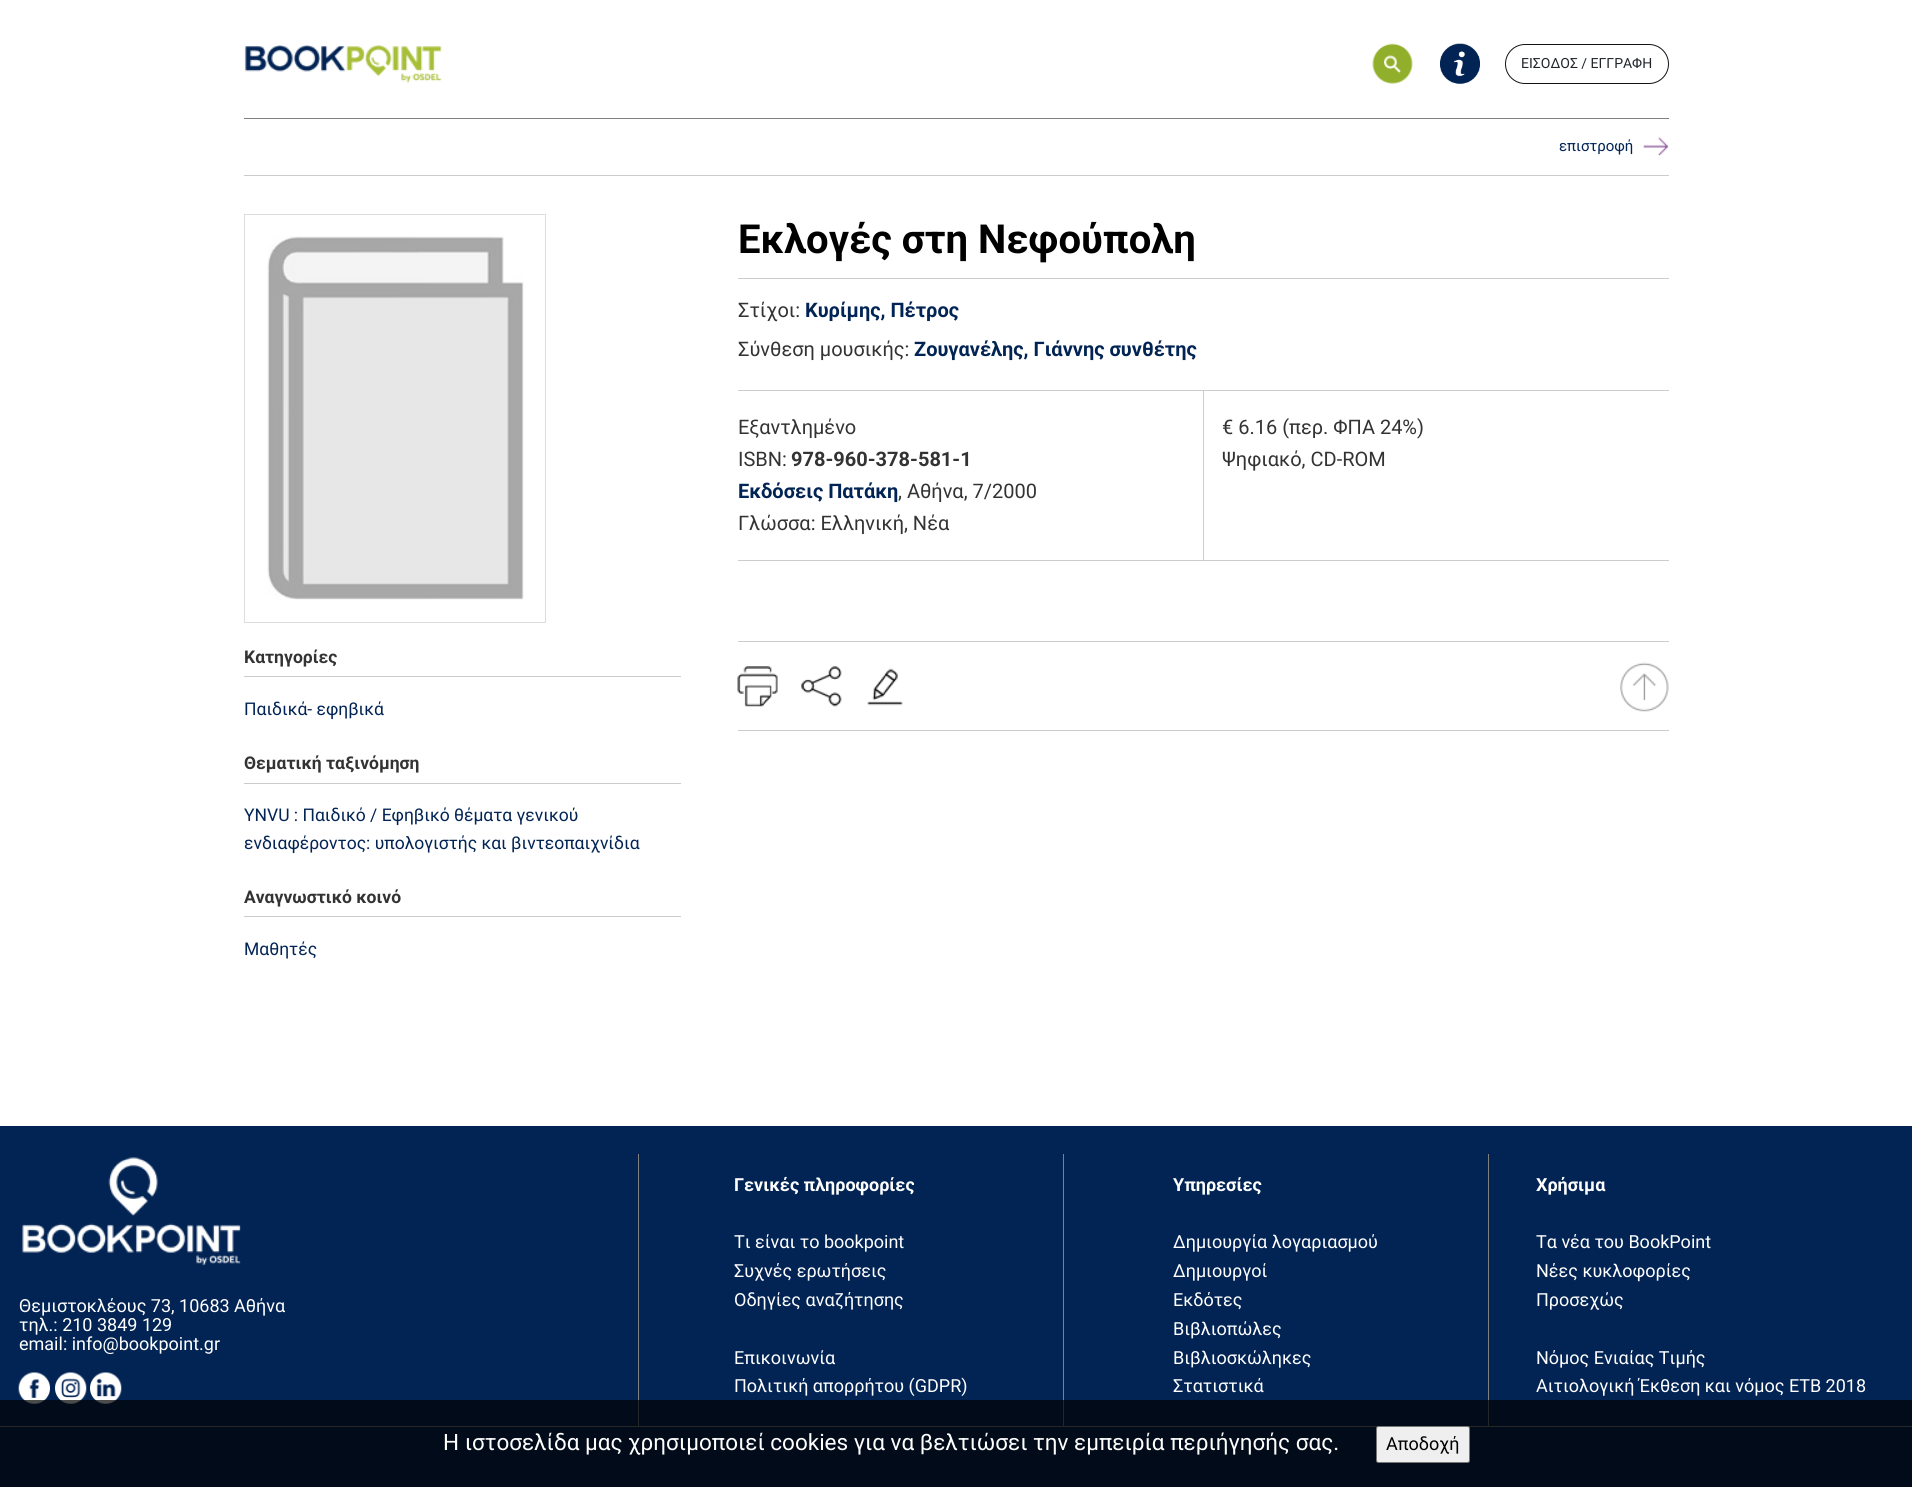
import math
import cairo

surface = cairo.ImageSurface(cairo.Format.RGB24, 1912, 1487)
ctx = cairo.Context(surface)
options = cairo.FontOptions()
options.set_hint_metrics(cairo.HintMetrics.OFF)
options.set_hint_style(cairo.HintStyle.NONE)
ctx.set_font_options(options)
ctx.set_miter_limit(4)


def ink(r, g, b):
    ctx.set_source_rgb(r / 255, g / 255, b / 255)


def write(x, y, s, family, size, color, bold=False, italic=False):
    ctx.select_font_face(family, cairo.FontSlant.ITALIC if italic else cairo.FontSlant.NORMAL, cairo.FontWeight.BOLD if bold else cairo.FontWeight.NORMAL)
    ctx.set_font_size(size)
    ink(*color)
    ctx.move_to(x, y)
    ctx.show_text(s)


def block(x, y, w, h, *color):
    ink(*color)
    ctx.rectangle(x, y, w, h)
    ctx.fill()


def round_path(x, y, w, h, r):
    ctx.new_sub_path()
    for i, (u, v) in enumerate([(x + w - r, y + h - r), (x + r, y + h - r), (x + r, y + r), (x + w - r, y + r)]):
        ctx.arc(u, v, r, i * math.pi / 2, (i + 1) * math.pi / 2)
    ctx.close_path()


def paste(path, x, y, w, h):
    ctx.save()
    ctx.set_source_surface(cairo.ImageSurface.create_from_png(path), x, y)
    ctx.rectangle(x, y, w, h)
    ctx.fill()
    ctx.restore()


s1 = dict(family="Roboto", size=14, color=(33, 37, 41))
s2 = dict(family="Roboto", size=15, color=(2, 36, 84))
s3 = dict(family="Roboto", size=40, color=(0, 0, 0), bold=True)
s4 = dict(family="Roboto", size=20, color=(51, 51, 51))
s5 = dict(family="Roboto", size=20, color=(2, 36, 84), bold=True)
s6 = dict(family="Roboto", size=20, color=(51, 51, 51), bold=True)
s7 = dict(family="Roboto", size=17.5, color=(51, 51, 51), bold=True)
s8 = dict(family="Roboto", size=17.5, color=(2, 36, 84))
s9 = dict(family="Roboto", size=18, color=(255, 255, 255))
s10 = dict(family="Roboto", size=18, color=(255, 255, 255), bold=True)
s11 = dict(family="Roboto", size=22.5, color=(255, 255, 255))
s12 = dict(family="Roboto", size=18, color=(0, 0, 0))

ink(255, 255, 255)
ctx.paint()
block(244, 118, 1425, 1, 128, 128, 128)
paste("pic1.png", 244, 45, 198, 38)
paste("pic2.png", 1372, 43, 41, 41)
paste("pic3.png", 1440, 43, 40, 41)
round_path(1505.5, 44.5, 163, 39, 19.5)
ink(19, 19, 19)
ctx.set_line_width(1)
ctx.stroke()
write(1521, 68, "ΕΙΣΟΔΟΣ / ΕΓΓΡΑΦΗ", **s1)
write(1559, 151, "επιστροφή", **s2)
paste("pic4.png", 1643, 137, 26, 19)
block(244, 175, 1425, 1, 204, 204, 204)
write(738, 253, "Εκλογές στη Νεφούπολη", **s3)
block(738, 278, 931, 1, 204, 204, 204)
write(738, 317, "Στίχοι:", **s4)
write(805, 317, "Κυρίμης, Πέτρος", **s5)
write(738, 356, "Σύνθεση μουσικής:", **s4)
write(914, 356, "Ζουγανέλης, Γιάννης συνθέτης", **s5)
block(738, 390, 931, 1, 204, 204, 204)
block(738, 560, 931, 1, 204, 204, 204)
block(1203, 391, 1, 169, 204, 204, 204)
write(738, 434, "Εξαντλημένο", **s4)
write(738, 466, "ISBN:", **s4)
write(791, 466, "978-960-378-581-1", **s6)
write(738, 498, "Εκδόσεις Πατάκη", **s5)
write(898, 498, ", Αθήνα, 7/2000", **s4)
write(738, 530, "Γλώσσα: Ελληνική, Νέα", **s4)
write(1222, 434, "€ 6.16 (περ. ΦΠΑ 24%)", **s4)
write(1222, 466, "Ψηφιακό, CD-ROM", **s4)
block(738, 641, 931, 1, 204, 204, 204)
block(738, 730, 931, 1, 204, 204, 204)
paste("pic5.png", 737, 666, 41, 41)
paste("pic6.png", 801, 666, 41, 41)
paste("pic7.png", 867, 668, 36, 38)
paste("pic8.png", 1620, 662, 49, 50)
ctx.rectangle(244.5, 214.5, 301, 408)
ink(221, 221, 221)
ctx.stroke()
paste("pic9.png", 267, 236, 257, 364)
block(244, 676, 437, 1, 204, 204, 204)
write(244, 663, "Κατηγορίες", **s7)
write(244, 715, "Παιδικά- εφηβικά", **s8)
block(244, 783, 437, 1, 204, 204, 204)
write(244, 769, "Θεματική ταξινόμηση", **s7)
write(244, 821, "YNVU : Παιδικό / Εφηβικό θέματα γενικού", **s8)
write(244, 849, "ενδιαφέροντος: υπολογιστής και βιντεοπαιχνίδια", **s8)
block(244, 916, 437, 1, 204, 204, 204)
write(244, 903, "Αναγνωστικό κοινό", **s7)
write(244, 955, "Μαθητές", **s8)
block(0, 1126, 1912, 361, 2, 36, 84)
paste("pic10.png", 22, 1157, 219, 109)
write(19, 1312, "Θεμιστοκλέους 73, 10683 Αθήνα", **s9)
write(19, 1331, "τηλ.: 210 3849 129", **s9)
write(19, 1350, "email: info@bookpoint.gr", **s9)
paste("pic11.png", 18, 1372, 32, 32)
paste("pic12.png", 55, 1372, 32, 32)
paste("pic13.png", 90, 1372, 32, 32)
block(638, 1154, 1, 272, 128, 128, 128)
write(734, 1191, "Γενικές πληροφορίες", **s10)
write(734, 1248, "Τι είναι το bookpoint", **s9)
write(734, 1277, "Συχνές ερωτήσεις", **s9)
write(734, 1306, "Οδηγίες αναζήτησης", **s9)
write(734, 1364, "Επικοινωνία", **s9)
write(734, 1392, "Πολιτική απορρήτου (GDPR)", **s9)
block(1063, 1154, 1, 272, 128, 128, 128)
write(1173, 1191, "Υπηρεσίες", **s10)
write(1173, 1248, "Δημιουργία λογαριασμού", **s9)
write(1173, 1277, "Δημιουργοί", **s9)
write(1173, 1306, "Εκδότες", **s9)
write(1173, 1335, "Βιβλιοπώλες", **s9)
write(1173, 1364, "Βιβλιοσκώληκες", **s9)
write(1173, 1392, "Στατιστικά", **s9)
block(1488, 1154, 1, 272, 128, 128, 128)
write(1536, 1191, "Χρήσιμα", **s10)
write(1536, 1248, "Τα νέα του BookPoint", **s9)
write(1536, 1277, "Νέες κυκλοφορίες", **s9)
write(1536, 1306, "Προσεχώς", **s9)
write(1536, 1364, "Νόμος Ενιαίας Τιμής", **s9)
write(1536, 1392, "Αιτιολογική Έκθεση και νόμος ΕΤΒ 2018", **s9)
block(0, 1426, 1912, 1, 128, 128, 128)
ctx.set_source_rgba(0, 0, 0, 0.7)
ctx.rectangle(0, 1400, 1912, 87)
ctx.fill()
write(443, 1450, "Η ιστοσελίδα μας χρησιμοποιεί cookies για να βελτιώσει την εμπειρία περιήγησής σας.", **s11)
ink(239, 239, 239)
round_path(1376.5, 1426.5, 93, 36, 2)
ctx.fill_preserve()
ink(118, 118, 118)
ctx.stroke()
write(1386, 1450, "Αποδοχή", **s12)
surface.write_to_png("screenshot.png")
